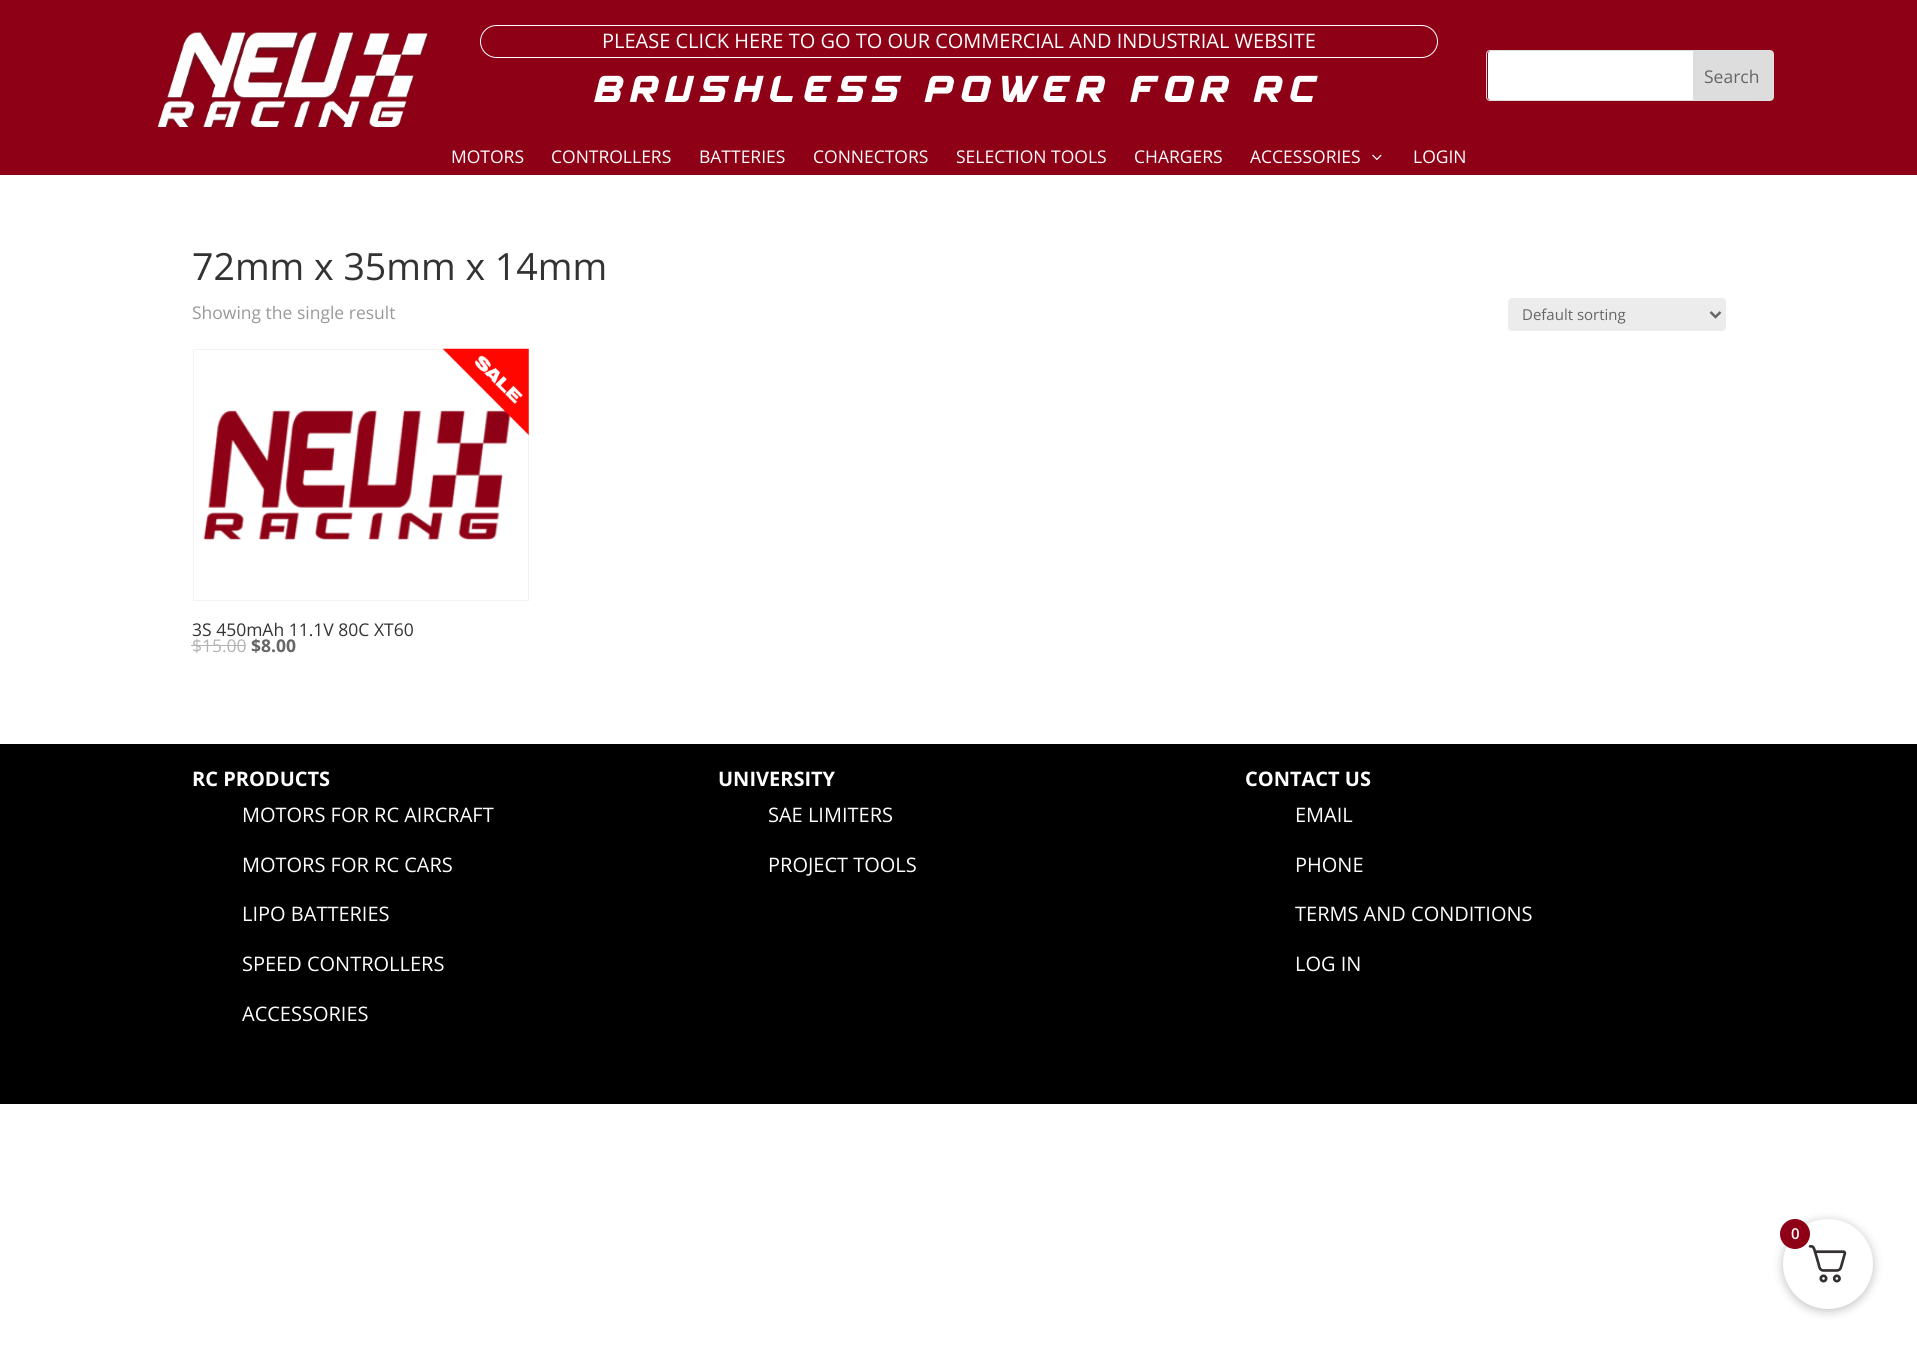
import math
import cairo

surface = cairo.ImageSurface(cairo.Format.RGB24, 1917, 1353)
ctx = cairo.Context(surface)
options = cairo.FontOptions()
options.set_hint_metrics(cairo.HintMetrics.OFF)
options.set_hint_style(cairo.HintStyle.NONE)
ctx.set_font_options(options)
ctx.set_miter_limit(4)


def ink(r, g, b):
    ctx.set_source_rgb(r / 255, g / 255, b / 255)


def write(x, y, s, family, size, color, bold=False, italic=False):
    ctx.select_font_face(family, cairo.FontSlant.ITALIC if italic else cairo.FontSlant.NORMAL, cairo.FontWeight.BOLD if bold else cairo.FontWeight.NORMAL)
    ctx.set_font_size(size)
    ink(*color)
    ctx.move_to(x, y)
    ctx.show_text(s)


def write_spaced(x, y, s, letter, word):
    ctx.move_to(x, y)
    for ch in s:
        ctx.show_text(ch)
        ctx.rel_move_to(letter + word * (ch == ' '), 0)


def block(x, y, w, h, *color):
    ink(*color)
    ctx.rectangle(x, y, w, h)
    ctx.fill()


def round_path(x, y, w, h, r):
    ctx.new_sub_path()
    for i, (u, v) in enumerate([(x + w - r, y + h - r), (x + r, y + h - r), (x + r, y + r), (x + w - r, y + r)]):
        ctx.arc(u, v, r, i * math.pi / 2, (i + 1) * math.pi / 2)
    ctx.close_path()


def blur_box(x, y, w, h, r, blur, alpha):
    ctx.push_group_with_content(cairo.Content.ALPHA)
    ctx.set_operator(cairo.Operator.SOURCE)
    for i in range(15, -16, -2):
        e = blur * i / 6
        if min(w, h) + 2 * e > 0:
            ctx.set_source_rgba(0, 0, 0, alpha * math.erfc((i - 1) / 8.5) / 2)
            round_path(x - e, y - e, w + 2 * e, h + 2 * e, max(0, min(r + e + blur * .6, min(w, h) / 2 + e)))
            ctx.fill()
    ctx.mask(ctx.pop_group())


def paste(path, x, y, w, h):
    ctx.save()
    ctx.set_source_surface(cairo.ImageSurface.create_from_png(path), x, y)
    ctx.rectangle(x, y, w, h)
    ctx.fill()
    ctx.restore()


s1 = dict(family="Open Sans", size=20, color=(255, 255, 255))
s2 = dict(family="Open Sans", size=17.5, color=(102, 102, 102))
s3 = dict(family="Open Sans", size=17.5, color=(255, 255, 255))
s4 = dict(family="Open Sans", size=37.5, color=(51, 51, 51))
s5 = dict(family="Open Sans", size=17.5, color=(153, 153, 153))
s6 = dict(family="Open Sans", size=15, color=(102, 102, 102))
s7 = dict(family="Open Sans", size=17.5, color=(51, 51, 51))
s8 = dict(family="Open Sans", size=17.5, color=(179, 179, 179))
s9 = dict(family="Open Sans", size=17.5, color=(102, 102, 102), bold=True)
s10 = dict(family="Open Sans", size=20, color=(255, 255, 255), bold=True)
s11 = dict(family="Open Sans SemiBold", size=15, color=(255, 255, 255))

ink(255, 255, 255)
ctx.paint()
block(0, 0, 1917, 175, 142, 0, 21)
paste("pic1.png", 157, 30, 272, 99)
round_path(480.5, 25.5, 957, 32, 16)
ink(255, 255, 255)
ctx.set_line_width(1)
ctx.stroke()
write(602, 48, "PLEASE CLICK HERE TO GO TO OUR COMMERCIAL AND INDUSTRIAL WEBSITE", **s1)
ctx.select_font_face("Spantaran")
ctx.set_font_size(40)
write_spaced(594, 102, "BRUSHLESS POWER FOR RC", 8.75, 0)
round_path(1486.5, 50.5, 287, 50, 3.5)
ink(221, 221, 221)
ctx.stroke()
ink(255, 255, 255)
round_path(1488, 51, 285, 49, 2.5)
ctx.fill()
ink(221, 221, 221)
ctx.new_path()
ctx.move_to(1693, 51)
ctx.line_to(1770.5, 51)
ctx.curve_to(1772, 51, 1773, 52, 1773, 53.5)
ctx.line_to(1773, 97.5)
ctx.curve_to(1773, 99, 1772, 100, 1770.5, 100)
ctx.line_to(1693, 100)
ctx.close_path()
ctx.fill()
write(1704, 83, "Search", **s2)
write(451, 163, "MOTORS", **s3)
write(551, 163, "CONTROLLERS", **s3)
write(699, 163, "BATTERIES", **s3)
write(813, 163, "CONNECTORS", **s3)
write(956, 163, "SELECTION TOOLS", **s3)
write(1134, 163, "CHARGERS", **s3)
write(1250, 163, "ACCESSORIES", **s3)
paste("pic2.png", 1372, 154, 10, 6)
write(1413, 163, "LOGIN", **s3)
write(192, 280, "72mm x 35mm x 14mm", **s4)
write(192, 319, "Showing the single result", **s5)
ink(236, 236, 236)
round_path(1508, 298, 218, 33, 4)
ctx.fill()
ctx.new_path()
ctx.move_to(1710.5, 312)
ctx.line_to(1715.5, 317)
ctx.line_to(1720.5, 312)
ink(102, 102, 102)
ctx.set_line_width(2.5)
ctx.stroke()
write(1522, 320, "Default sorting", **s6)
ctx.rectangle(193.5, 349.5, 335, 251)
ink(242, 242, 242)
ctx.set_line_width(1)
ctx.stroke()
paste("pic4.png", 203, 410, 308, 130)
paste("pic3.png", 442, 348, 87, 88)
write(192, 636, "3S 450mAh 11.1V 80C XT60", **s7)
write(192, 652, "$15.00", **s8)
block(191, 645, 55, 1, 179, 179, 179)
write(251, 652, "$8.00", **s9)
block(0, 744, 1917, 360, 0, 0, 0)
write(192, 786, "RC PRODUCTS", **s10)
write(242, 822, "MOTORS FOR RC AIRCRAFT", **s1)
write(242, 872, "MOTORS FOR RC CARS", **s1)
write(242, 921, "LIPO BATTERIES", **s1)
write(242, 971, "SPEED CONTROLLERS", **s1)
write(242, 1021, "ACCESSORIES", **s1)
write(718, 786, "UNIVERSITY", **s10)
write(768, 822, "SAE LIMITERS", **s1)
write(768, 872, "PROJECT TOOLS", **s1)
write(1245, 786, "CONTACT US", **s10)
write(1295, 822, "EMAIL", **s1)
write(1295, 872, "PHONE", **s1)
write(1295, 921, "TERMS AND CONDITIONS", **s1)
write(1295, 971, "LOG IN", **s1)
ink(0, 0, 0)
blur_box(1783, 1221, 90, 90, 45, 5, 0.25)
ink(255, 255, 255)
ctx.arc(1828, 1264, 45, 0, 2 * math.pi)
ctx.fill()
paste("pic5.png", 1808, 1245, 39, 38)
ink(142, 0, 21)
ctx.arc(1795, 1234, 15, 0, 2 * math.pi)
ctx.fill()
write(1791, 1239, "0", **s11)
surface.write_to_png("screenshot.png")
